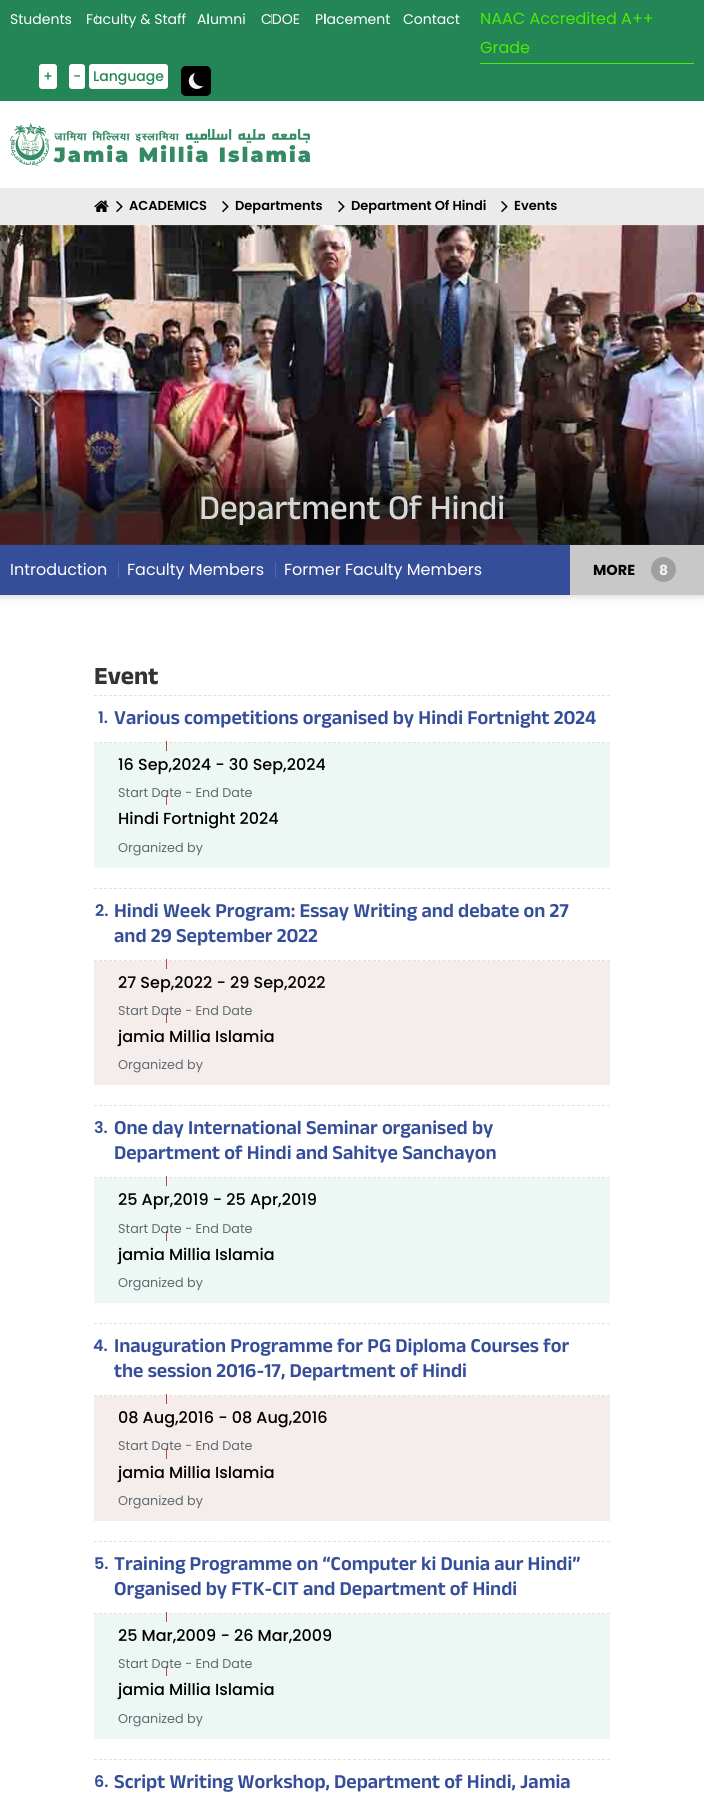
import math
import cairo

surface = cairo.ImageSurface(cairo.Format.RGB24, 704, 1801)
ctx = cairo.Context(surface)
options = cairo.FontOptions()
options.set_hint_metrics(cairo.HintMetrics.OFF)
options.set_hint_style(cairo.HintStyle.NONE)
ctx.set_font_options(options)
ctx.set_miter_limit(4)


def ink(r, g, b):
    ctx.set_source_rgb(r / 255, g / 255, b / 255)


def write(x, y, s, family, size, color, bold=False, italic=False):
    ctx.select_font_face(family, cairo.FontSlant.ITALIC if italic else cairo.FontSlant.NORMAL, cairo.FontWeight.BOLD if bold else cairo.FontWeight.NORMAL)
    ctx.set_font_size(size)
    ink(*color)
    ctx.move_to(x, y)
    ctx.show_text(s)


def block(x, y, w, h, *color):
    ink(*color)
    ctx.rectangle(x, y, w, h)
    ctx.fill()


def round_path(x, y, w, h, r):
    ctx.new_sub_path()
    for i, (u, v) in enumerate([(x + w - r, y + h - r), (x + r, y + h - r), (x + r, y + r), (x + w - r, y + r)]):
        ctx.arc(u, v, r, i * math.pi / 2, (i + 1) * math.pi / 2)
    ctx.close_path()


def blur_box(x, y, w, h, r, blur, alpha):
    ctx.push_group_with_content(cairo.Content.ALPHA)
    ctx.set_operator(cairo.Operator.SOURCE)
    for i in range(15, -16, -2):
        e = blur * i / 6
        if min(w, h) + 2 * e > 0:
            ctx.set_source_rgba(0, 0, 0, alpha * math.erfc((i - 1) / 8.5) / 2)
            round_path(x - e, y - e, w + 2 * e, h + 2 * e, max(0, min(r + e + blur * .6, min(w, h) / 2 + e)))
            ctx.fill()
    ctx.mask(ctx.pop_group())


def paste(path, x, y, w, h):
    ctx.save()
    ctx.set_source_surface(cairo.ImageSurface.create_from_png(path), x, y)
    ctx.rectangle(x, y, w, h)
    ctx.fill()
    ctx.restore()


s1 = dict(family="Poppins", size=14, color=(255, 255, 255))
s2 = dict(family="Poppins", size=16, color=(72, 237, 0))
s3 = dict(family="Poppins Medium", size=14, color=(36, 134, 87))
s4 = dict(family="Poppins SemiBold", size=13, color=(0, 0, 0))
s5 = dict(family="Anek Devanagari Medium", size=35, color=(217, 216, 216))
s6 = dict(family="Poppins", size=16, color=(255, 255, 255))
s7 = dict(family="Poppins", size=14.5, color=(0, 0, 0), bold=True)
s8 = dict(family="Poppins", size=14, color=(242, 242, 242), bold=True)
s9 = dict(family="Anek Devanagari", size=25, color=(51, 51, 51), bold=True)
s10 = dict(family="Poppins SemiBold", size=16, color=(53, 78, 153))
s11 = dict(family="Anek Devanagari SemiBold", size=20, color=(53, 78, 153))
s12 = dict(family="Poppins Medium", size=16, color=(0, 0, 0))
s13 = dict(family="Poppins", size=12.75, color=(96, 105, 112))

ink(255, 255, 255)
ctx.paint()
block(0, 0, 704, 101, 36, 134, 87)
write(10, 24, "Students", **s1)
ctx.set_source_rgba(1, 1, 1, 0.49)
ctx.rectangle(20, 14, 1, 10)
ctx.fill()
write(86, 24, "Faculty & Staff", **s1)
ctx.set_source_rgba(1, 1, 1, 0.49)
ctx.rectangle(96, 14, 1, 10)
ctx.fill()
write(197, 24, "Alumni", **s1)
block(207, 14, 1, 10, 194, 221, 208)
write(261, 24, "CDOE", **s1)
block(271, 14, 1, 10, 143, 193, 169)
write(315, 24, "Placement", **s1)
block(325, 14, 1, 10, 210, 230, 220)
write(403, 24, "Contact", **s1)
block(480, 63, 214, 1, 72, 237, 0)
write(480, 24, "NAAC Accredited A++", **s2)
write(480, 53, "Grade", **s2)
ink(255, 255, 255)
round_path(39, 64, 18, 25, 3)
ctx.fill()
write(43, 81, "+", **s3)
ink(255, 255, 255)
round_path(69, 64, 16, 25, 3)
ctx.fill()
write(73, 81, "-", **s3)
ink(255, 255, 255)
round_path(89, 64, 79, 25, 3)
ctx.fill()
write(93, 81, "Language", **s3)
ink(0, 0, 0)
round_path(181, 66, 30, 30, 5)
ctx.fill()
paste("pic1.png", 188, 73, 15, 16)
paste("pic2.png", 10, 123, 300, 43)
block(0, 188, 704, 37, 235, 235, 235)
paste("pic3.png", 94, 200, 15, 12)
paste("pic4.png", 116, 201, 7, 12)
write(129, 210, "ACADEMICS", **s4)
paste("pic4.png", 222, 201, 7, 12)
write(235, 210, "Departments", **s4)
paste("pic4.png", 338, 201, 7, 12)
write(351, 210, "Department Of Hindi", **s4)
paste("pic4.png", 501, 201, 7, 12)
write(514, 210, "Events", **s4)
ink(0, 0, 0)
blur_box(0, 545, 704, 50, 0, 5, 0.2)
paste("pic5.png", 0, 225, 704, 320)
gradient = cairo.LinearGradient(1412, 225, 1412, 545)
gradient.add_color_stop_rgba(0.65, 0, 0, 0, 0)
gradient.add_color_stop_rgba(0.88, 0, 0, 0, 0.72)
ctx.set_source(gradient)
ctx.rectangle(0, 435, 704, 110)
ctx.fill()
ctx.set_source_rgba(0, 0, 0, 0.13)
ctx.rectangle(159, 488, 386, 52)
ctx.fill()
write(199, 519, "Department Of Hindi", **s5)
block(0, 545, 570, 50, 53, 78, 153)
write(10, 575, "Introduction", **s6)
block(118, 562, 1, 16, 81, 103, 167)
write(127, 575, "Faculty Members", **s6)
block(275, 562, 1, 16, 81, 103, 167)
write(284, 575, "Former Faculty Members", **s6)
block(570, 545, 134, 50, 200, 200, 200)
write(593, 575, "MORE", **s7)
ink(159, 159, 159)
ctx.new_path()
ctx.arc(663.5, 569.5, 12.5, 0, 2 * math.pi)
ctx.fill()
write(659, 575, "8", **s8)
write(94, 684, "Event", **s9)
block(94, 743, 516, 125, 237, 247, 243)
write(98, 723, "1.", **s10)
ctx.new_path()
ctx.move_to(94, 695.5)
ctx.line_to(610, 695.5)
ink(225, 225, 225)
ctx.set_line_width(1)
ctx.set_dash([3, 1.98])
ctx.stroke()
ctx.new_path()
ctx.move_to(94, 742.5)
ctx.line_to(610, 742.5)
ctx.stroke()
write(114, 724, "Various competitions organised by Hindi Fortnight 2024", **s11)
block(166, 741, 1, 10, 178, 73, 59)
write(118, 770, "16 Sep,2024 - 30 Sep,2024", **s12)
write(118, 797, "Start Date - End Date", **s13)
block(166, 795, 1, 10, 178, 73, 59)
write(118, 824, "Hindi Fortnight 2024", **s12)
write(118, 852, "Organized by", **s13)
block(94, 961, 516, 124, 245, 237, 236)
write(95, 916, "2.", **s10)
ctx.new_path()
ctx.move_to(94, 888.5)
ctx.line_to(610, 888.5)
ink(225, 225, 225)
ctx.stroke()
ctx.new_path()
ctx.move_to(94, 960.5)
ctx.line_to(610, 960.5)
ctx.stroke()
write(114, 917, "Hindi Week Program: Essay Writing and debate on 27", **s11)
write(114, 942, "and 29 September 2022", **s11)
block(166, 959, 1, 10, 178, 73, 59)
write(118, 988, "27 Sep,2022 - 29 Sep,2022", **s12)
write(118, 1015, "Start Date - End Date", **s13)
block(166, 1013, 1, 10, 178, 73, 59)
write(118, 1042, "jamia Millia Islamia", **s12)
write(118, 1069, "Organized by", **s13)
block(94, 1178, 516, 125, 237, 247, 243)
write(94, 1133, "3.", **s10)
ctx.new_path()
ctx.move_to(94, 1105.5)
ctx.line_to(610, 1105.5)
ink(225, 225, 225)
ctx.stroke()
ctx.new_path()
ctx.move_to(94, 1177.5)
ctx.line_to(610, 1177.5)
ctx.stroke()
write(114, 1134, "One day International Seminar organised by", **s11)
write(114, 1159, "Department of Hindi and Sahitye Sanchayon", **s11)
block(166, 1176, 1, 10, 178, 73, 59)
write(118, 1205, "25 Apr,2019 - 25 Apr,2019", **s12)
write(118, 1233, "Start Date - End Date", **s13)
block(166, 1231, 1, 10, 178, 73, 59)
write(118, 1260, "jamia Millia Islamia", **s12)
write(118, 1287, "Organized by", **s13)
block(94, 1396, 516, 125, 245, 237, 236)
write(93, 1351, "4.", **s10)
ctx.new_path()
ctx.move_to(94, 1323.5)
ctx.line_to(610, 1323.5)
ink(225, 225, 225)
ctx.stroke()
ctx.new_path()
ctx.move_to(94, 1395.5)
ctx.line_to(610, 1395.5)
ctx.stroke()
write(114, 1352, "Inauguration Programme for PG Diploma Courses for", **s11)
write(114, 1377, "the session 2016-17, Department of Hindi", **s11)
block(166, 1394, 1, 10, 178, 73, 59)
write(118, 1423, "08 Aug,2016 - 08 Aug,2016", **s12)
write(118, 1450, "Start Date - End Date", **s13)
block(166, 1449, 1, 10, 178, 73, 59)
write(118, 1478, "jamia Millia Islamia", **s12)
write(118, 1505, "Organized by", **s13)
block(94, 1614, 516, 125, 237, 247, 243)
write(94, 1569, "5.", **s10)
ctx.new_path()
ctx.move_to(94, 1541.5)
ctx.line_to(610, 1541.5)
ink(225, 225, 225)
ctx.stroke()
ctx.new_path()
ctx.move_to(94, 1613.5)
ctx.line_to(610, 1613.5)
ctx.stroke()
write(114, 1570, "Training Programme on “Computer ki Dunia aur Hindi”", **s11)
write(114, 1595, "Organised by FTK-CIT and Department of Hindi", **s11)
block(166, 1612, 1, 10, 178, 73, 59)
write(118, 1641, "25 Mar,2009 - 26 Mar,2009", **s12)
write(118, 1668, "Start Date - End Date", **s13)
block(166, 1666, 1, 10, 178, 73, 59)
write(118, 1695, "jamia Millia Islamia", **s12)
write(118, 1723, "Organized by", **s13)
write(94, 1787, "6.", **s10)
ctx.new_path()
ctx.move_to(94, 1759.5)
ctx.line_to(610, 1759.5)
ink(225, 225, 225)
ctx.stroke()
write(114, 1788, "Script Writing Workshop, Department of Hindi, Jamia", **s11)
surface.write_to_png("screenshot.png")
